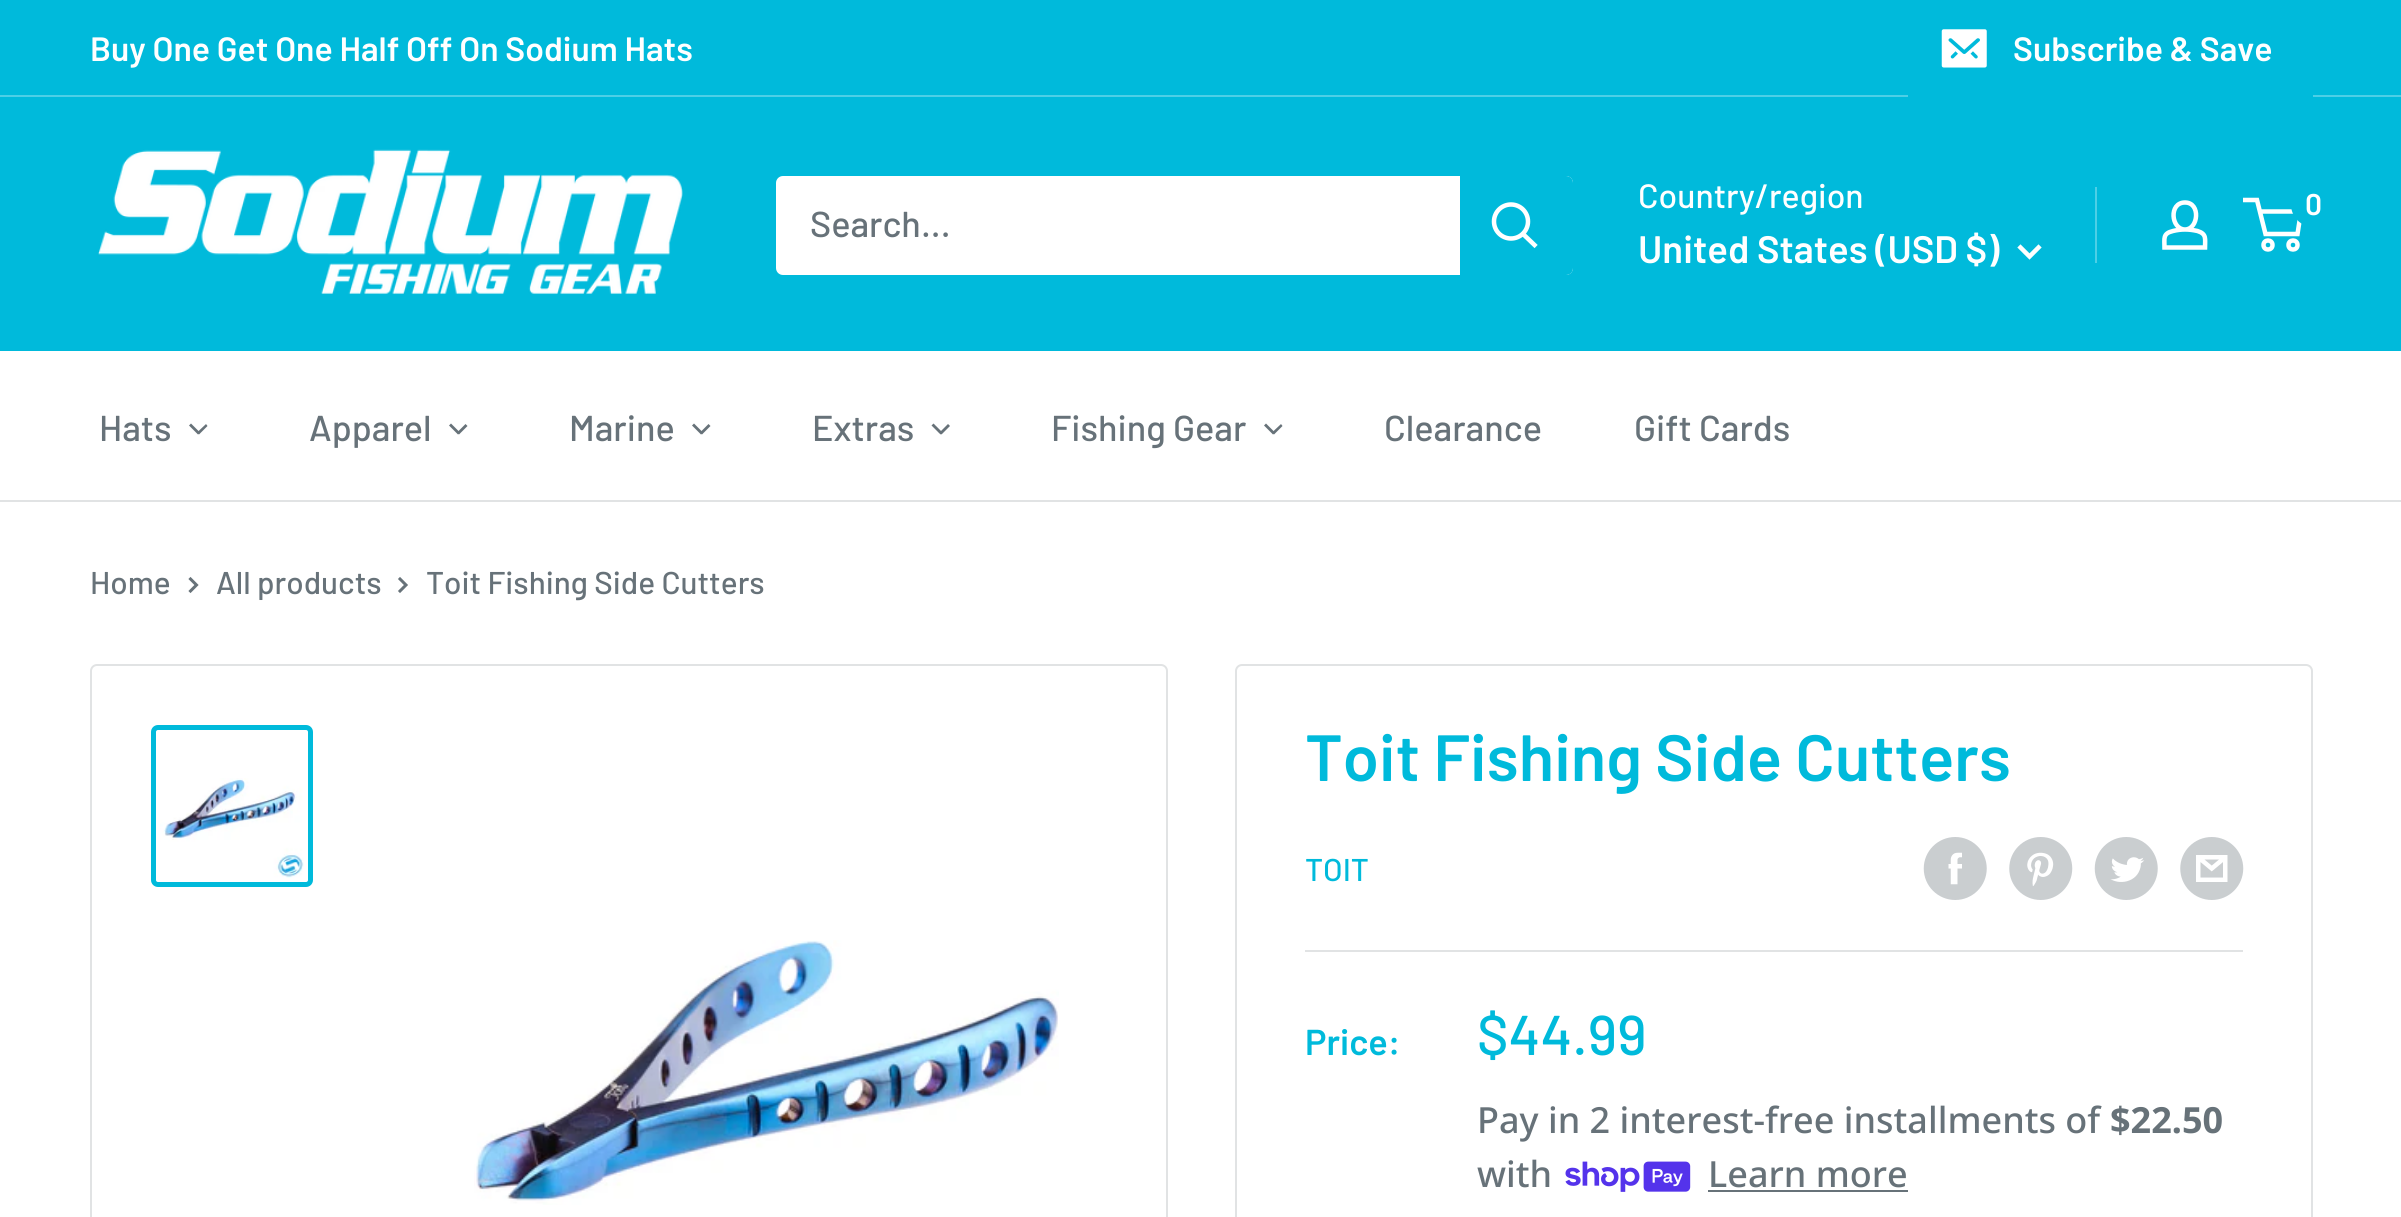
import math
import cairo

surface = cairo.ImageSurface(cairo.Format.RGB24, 2401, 1217)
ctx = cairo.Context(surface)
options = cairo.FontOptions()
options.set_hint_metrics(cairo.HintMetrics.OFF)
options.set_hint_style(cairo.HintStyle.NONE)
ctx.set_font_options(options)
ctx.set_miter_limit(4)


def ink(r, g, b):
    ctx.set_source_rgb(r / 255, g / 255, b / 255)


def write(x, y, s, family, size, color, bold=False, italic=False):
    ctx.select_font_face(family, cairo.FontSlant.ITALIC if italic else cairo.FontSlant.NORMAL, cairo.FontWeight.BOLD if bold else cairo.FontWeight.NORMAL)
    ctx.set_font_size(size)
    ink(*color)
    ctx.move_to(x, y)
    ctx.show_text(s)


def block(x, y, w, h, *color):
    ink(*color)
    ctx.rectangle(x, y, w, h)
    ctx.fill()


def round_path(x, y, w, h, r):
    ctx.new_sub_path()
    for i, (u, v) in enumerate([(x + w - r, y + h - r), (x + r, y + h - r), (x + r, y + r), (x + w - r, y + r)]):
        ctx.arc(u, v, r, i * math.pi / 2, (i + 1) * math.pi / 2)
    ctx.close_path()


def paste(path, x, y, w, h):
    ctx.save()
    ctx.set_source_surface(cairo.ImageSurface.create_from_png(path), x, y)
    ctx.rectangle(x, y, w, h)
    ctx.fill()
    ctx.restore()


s1 = dict(family="Barlow SemiBold", size=33.75, color=(255, 255, 255))
s2 = dict(family="Barlow Medium", size=36, color=(103, 114, 121))
s3 = dict(family="Barlow Medium", size=33.75, color=(255, 255, 255))
s4 = dict(family="Barlow SemiBold", size=38.25, color=(255, 255, 255))
s5 = dict(family="Barlow SemiBold", size=30, color=(255, 255, 255))
s6 = dict(family="Barlow Medium", size=31.5, color=(103, 114, 121))
s7 = dict(family="Barlow SemiBold", size=65.25, color=(0, 186, 219))
s8 = dict(family="Barlow Medium", size=31.5, color=(0, 186, 219))
s9 = dict(family="Barlow SemiBold", size=36, color=(0, 186, 219))
s10 = dict(family="Barlow Medium", size=56, color=(0, 186, 219))
s11 = dict(family="Noto Sans Medium", size=36, color=(103, 114, 121))
s12 = dict(family="Noto Sans", size=36, color=(103, 114, 121), bold=True)

ink(255, 255, 255)
ctx.paint()
block(0, 0, 2401, 95, 0, 186, 219)
block(0, 95, 2401, 2, 77, 207, 230)
write(90, 61, "Buy One Get One Half Off On Sodium Hats", **s1)
block(1908, 95, 405, 2, 0, 186, 219)
paste("pic1.png", 1941, 29, 46, 39)
write(2013, 61, "Subscribe & Save", **s1)
block(0, 97, 2401, 254, 0, 186, 219)
paste("pic2.png", 98, 149, 585, 146)
ink(255, 255, 255)
round_path(776, 176, 797, 99, 7)
ctx.fill()
write(810, 237, "Search...", **s2)
ink(0, 186, 219)
ctx.new_path()
ctx.move_to(1460, 176)
ctx.line_to(1566, 176)
ctx.curve_to(1570, 176, 1573, 179, 1573, 183)
ctx.line_to(1573, 268)
ctx.curve_to(1573, 272, 1570, 275, 1566, 275)
ctx.line_to(1460, 275)
ctx.close_path()
ctx.fill()
ctx.new_path()
ctx.move_to(1534.5, 245)
ctx.line_to(1523, 234)
ink(255, 255, 255)
ctx.set_line_width(4.5)
ctx.set_line_cap(cairo.LineCap.SQUARE)
ctx.stroke()
ctx.arc(1511, 221.5, 17, 0, 2 * math.pi)
ctx.set_line_cap(cairo.LineCap.BUTT)
ctx.stroke()
write(1638, 208, "Country/region", **s3)
write(1638, 263, "United States (USD $)", **s4)
ctx.new_path()
ctx.move_to(2038.5, 247.5)
ctx.line_to(2029.5, 256.5)
ctx.line_to(2020.5, 247.5)
ctx.set_line_cap(cairo.LineCap.SQUARE)
ctx.stroke()
block(2095, 187, 2, 76, 77, 207, 230)
ctx.new_path()
ctx.move_to(2185, 229.5)
ctx.curve_to(2189, 229.5, 2193, 230, 2197.5, 231)
ctx.curve_to(2207, 234, 2205, 239, 2205, 247.5)
ctx.line_to(2164.5, 247.5)
ctx.curve_to(2164.5, 238.5, 2162.5, 233.5, 2173, 231)
ctx.curve_to(2177, 230, 2181, 229.5, 2185, 229.5)
ctx.close_path()
ctx.move_to(2185, 229.5)
ctx.curve_to(2171, 229.5, 2168.5, 202.5, 2185, 202.5)
ctx.curve_to(2201, 202.5, 2198.5, 229.5, 2185, 229.5)
ctx.close_path()
ink(255, 255, 255)
ctx.set_line_cap(cairo.LineCap.BUTT)
ctx.stroke()
ctx.arc(2268, 245, 4.5, 0, 2 * math.pi)
ctx.stroke()
ctx.arc(2293, 245, 4.5, 0, 2 * math.pi)
ctx.stroke()
ctx.new_path()
ctx.move_to(2259.5, 211.5)
ctx.line_to(2301, 211.5)
ctx.line_to(2297.5, 234)
ctx.line_to(2265.5, 234)
ctx.line_to(2257, 200)
ctx.line_to(2243, 200)
ctx.stroke()
ink(0, 186, 219)
round_path(2291, 180, 45, 47, 22.5)
ctx.fill()
write(2305, 215, "0", **s5)
block(0, 500, 2401, 2, 225, 227, 228)
write(99, 441, "Hats", **s2)
ctx.new_path()
ctx.move_to(206, 424)
ctx.line_to(207.5, 426)
ctx.line_to(199, 434.5)
ctx.line_to(197, 432.5)
ctx.close_path()
ctx.fill()
ctx.new_path()
ctx.move_to(191, 423.5)
ctx.line_to(200, 432.5)
ctx.line_to(198, 434.5)
ctx.line_to(189, 425.5)
ctx.close_path()
ctx.fill()
write(309, 441, "Apparel", **s2)
ctx.new_path()
ctx.move_to(465.5, 424)
ctx.line_to(467.5, 426)
ctx.line_to(459, 434.5)
ctx.line_to(457, 432.5)
ctx.close_path()
ctx.fill()
ctx.new_path()
ctx.move_to(451, 423.5)
ctx.line_to(460, 432.5)
ctx.line_to(458, 434.5)
ctx.line_to(449, 425.5)
ctx.close_path()
ctx.fill()
write(569, 441, "Marine", **s2)
ctx.new_path()
ctx.move_to(708.5, 424)
ctx.line_to(710.5, 426)
ctx.line_to(702, 434.5)
ctx.line_to(700, 432.5)
ctx.close_path()
ctx.fill()
ctx.new_path()
ctx.move_to(694, 423.5)
ctx.line_to(703, 432.5)
ctx.line_to(701, 434.5)
ctx.line_to(692, 425.5)
ctx.close_path()
ctx.fill()
write(812, 441, "Extras", **s2)
ctx.new_path()
ctx.move_to(948, 424)
ctx.line_to(950, 426)
ctx.line_to(941.5, 434.5)
ctx.line_to(939.5, 432.5)
ctx.close_path()
ctx.fill()
ctx.new_path()
ctx.move_to(933.5, 423.5)
ctx.line_to(942.5, 432.5)
ctx.line_to(940.5, 434.5)
ctx.line_to(931.5, 425.5)
ctx.close_path()
ctx.fill()
write(1051, 441, "Fishing Gear", **s2)
ctx.new_path()
ctx.move_to(1281, 424)
ctx.line_to(1282.5, 426)
ctx.line_to(1274, 434.5)
ctx.line_to(1272, 432.5)
ctx.close_path()
ctx.fill()
ctx.new_path()
ctx.move_to(1266, 423.5)
ctx.line_to(1275, 432.5)
ctx.line_to(1273, 434.5)
ctx.line_to(1264, 425.5)
ctx.close_path()
ctx.fill()
write(1384, 441, "Clearance", **s2)
write(1634, 441, "Gift Cards", **s2)
write(90, 594, "Home", **s6)
ctx.new_path()
ctx.move_to(190.5, 579)
ctx.line_to(196.5, 585)
ctx.line_to(190.5, 591)
ctx.set_line_width(3)
ctx.set_line_cap(cairo.LineCap.SQUARE)
ctx.stroke()
write(216, 594, "All products", **s6)
ctx.new_path()
ctx.move_to(400, 579)
ctx.line_to(406, 585)
ctx.line_to(400, 591)
ctx.stroke()
write(426, 594, "Toit Fishing Side Cutters", **s6)
round_path(91, 665, 1076, 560, 6)
ink(225, 227, 228)
ctx.set_line_width(2)
ctx.set_line_cap(cairo.LineCap.BUTT)
ctx.stroke()
round_path(153.5, 727.5, 157, 157, 4.5)
ink(0, 186, 219)
ctx.set_line_width(5)
ctx.stroke()
paste("pic3.png", 160, 778, 144, 100)
paste("pic4.png", 474, 940, 585, 265)
round_path(1236, 665, 1076, 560, 6)
ink(225, 227, 228)
ctx.set_line_width(2)
ctx.stroke()
write(1305, 781, "Toit Fishing Side Cutters", **s7)
write(1305, 881, "TOIT", **s8)
paste("pic5.png", 1923, 837, 64, 63)
paste("pic6.png", 2009, 837, 64, 63)
paste("pic7.png", 2094, 837, 64, 63)
paste("pic8.png", 2180, 837, 64, 63)
block(1305, 950, 938, 2, 225, 227, 228)
write(1305, 1055, "Price:", **s9)
write(1477, 1055, "$44.99", **s10)
write(1477, 1133, "Pay in 2 interest-free installments of", **s11)
write(2110, 1133, "$22.50", **s12)
write(1477, 1187, "with", **s11)
paste("pic9.png", 1565, 1161, 126, 31)
write(1708, 1187, "Learn more", **s11)
block(1708, 1190, 200, 2, 103, 114, 121)
surface.write_to_png("screenshot.png")
